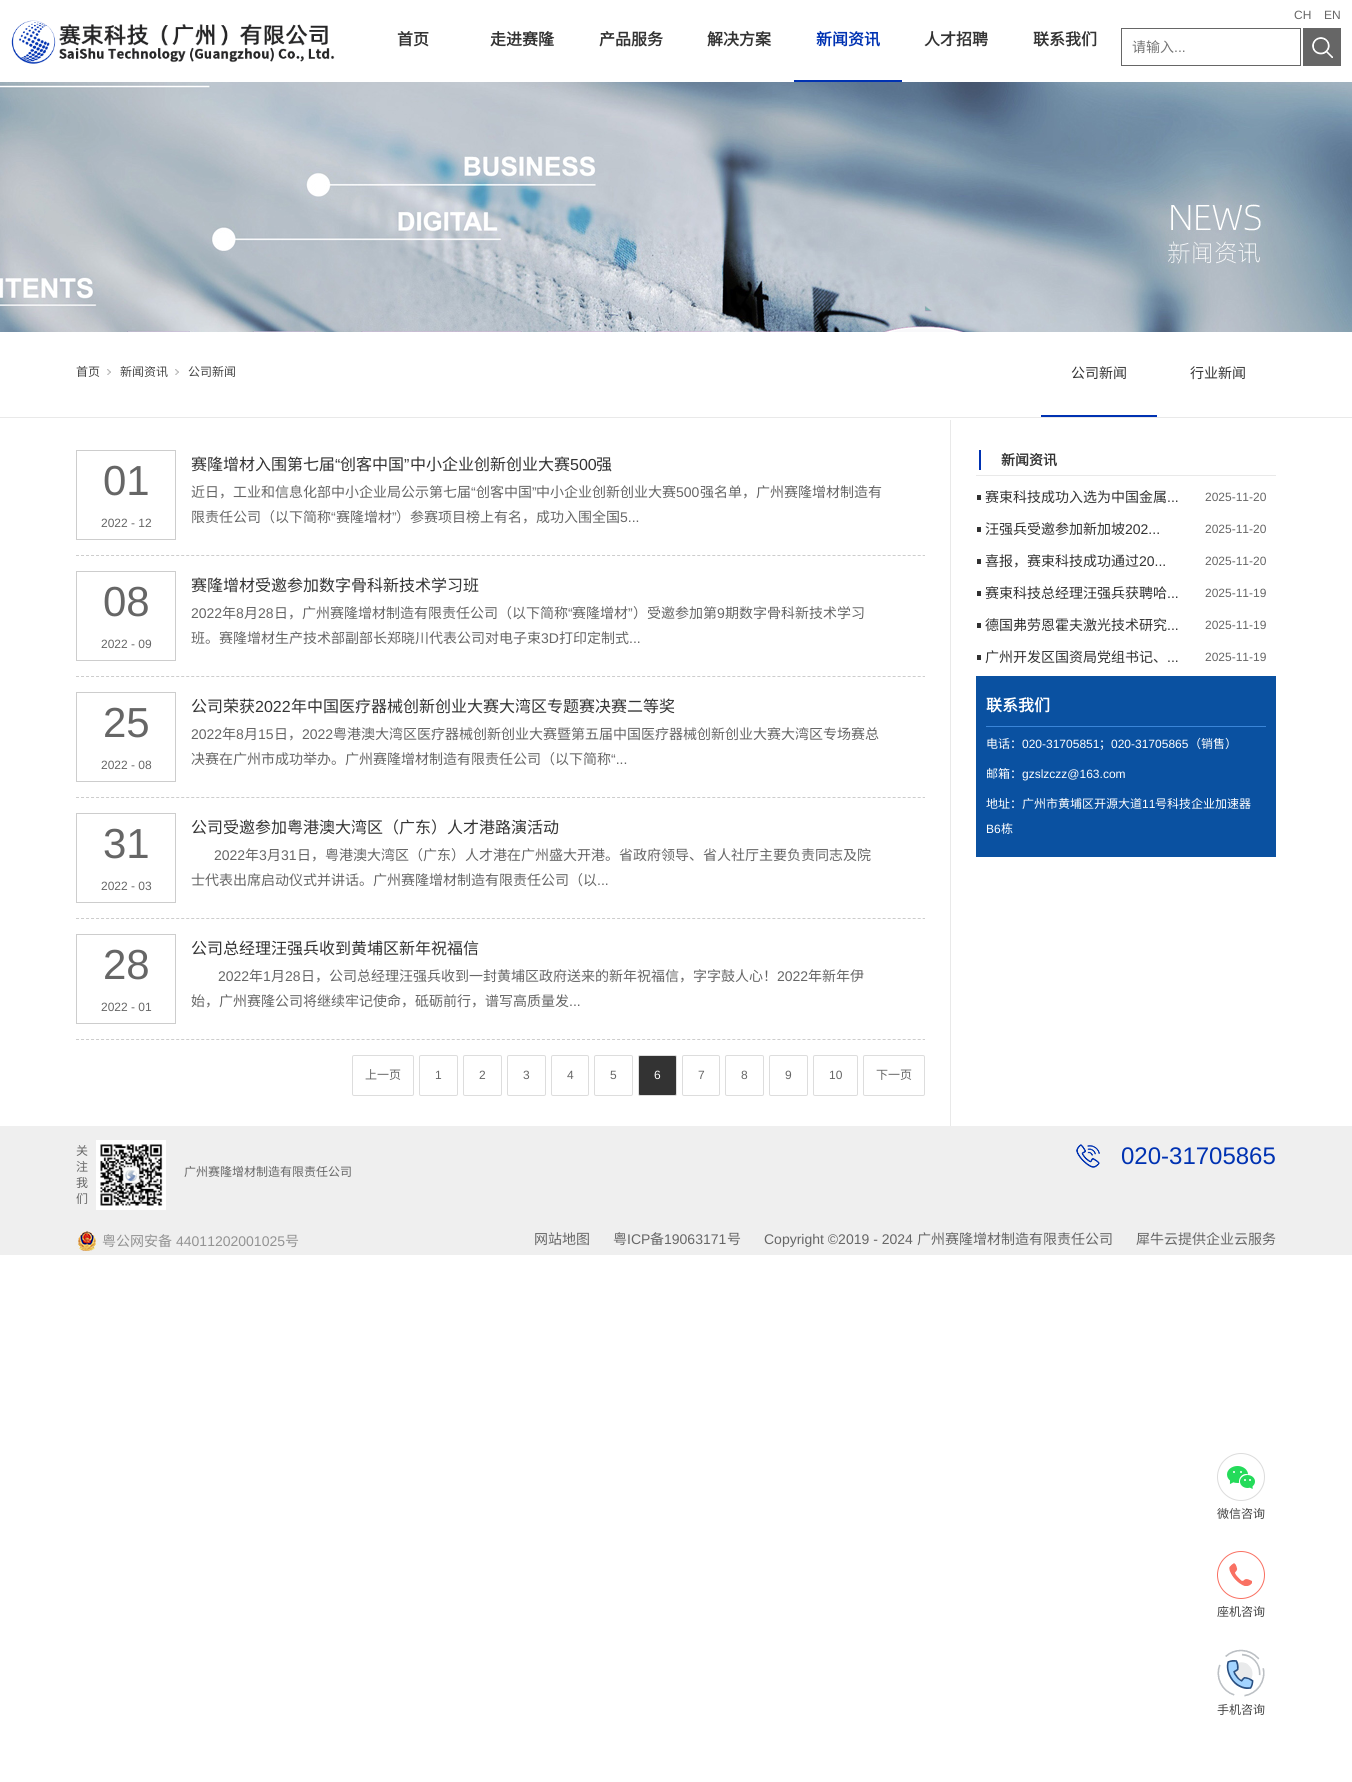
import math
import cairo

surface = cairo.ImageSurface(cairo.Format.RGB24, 1352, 1782)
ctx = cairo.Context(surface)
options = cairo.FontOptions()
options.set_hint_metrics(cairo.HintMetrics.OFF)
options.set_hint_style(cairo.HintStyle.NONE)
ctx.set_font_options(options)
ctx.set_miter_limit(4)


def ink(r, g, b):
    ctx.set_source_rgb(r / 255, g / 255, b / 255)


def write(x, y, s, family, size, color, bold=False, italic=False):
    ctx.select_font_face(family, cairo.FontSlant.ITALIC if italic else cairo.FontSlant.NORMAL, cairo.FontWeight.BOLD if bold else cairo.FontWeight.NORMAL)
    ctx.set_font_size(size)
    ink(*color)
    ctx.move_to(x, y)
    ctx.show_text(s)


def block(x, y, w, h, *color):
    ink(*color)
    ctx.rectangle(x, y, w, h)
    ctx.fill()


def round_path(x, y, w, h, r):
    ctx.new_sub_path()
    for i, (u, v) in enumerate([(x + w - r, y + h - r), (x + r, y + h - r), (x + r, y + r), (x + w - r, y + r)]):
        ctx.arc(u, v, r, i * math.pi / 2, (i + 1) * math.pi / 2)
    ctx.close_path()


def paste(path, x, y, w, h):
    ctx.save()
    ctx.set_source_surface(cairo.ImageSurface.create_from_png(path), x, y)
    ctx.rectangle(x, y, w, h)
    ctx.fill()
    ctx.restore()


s1 = dict(family="Noto Sans CJK SC", size=16, color=(51, 51, 51), bold=True)
s2 = dict(family="Noto Sans CJK SC", size=16, color=(0, 50, 178), bold=True)
s3 = dict(family="Liberation Sans", size=12, color=(102, 102, 102))
s4 = dict(family="Noto Sans CJK SC", size=14, color=(117, 117, 117))
s5 = dict(family="Liberation Sans", size=14, color=(117, 117, 117))
s6 = dict(family="Noto Sans CJK SC", size=12, color=(68, 68, 68))
s7 = dict(family="Noto Sans CJK SC", size=14, color=(51, 51, 51))
s8 = dict(family="Liberation Sans", size=42, color=(102, 102, 102))
s9 = dict(family="Noto Sans CJK SC", size=16, color=(51, 51, 51))
s10 = dict(family="Liberation Sans", size=16, color=(51, 51, 51))
s11 = dict(family="Noto Sans CJK SC", size=14, color=(102, 102, 102))
s12 = dict(family="Liberation Sans", size=14, color=(102, 102, 102))
s13 = dict(family="Noto Sans CJK SC", size=12, color=(102, 102, 102))
s14 = dict(family="Liberation Sans", size=12, color=(255, 255, 255))
s15 = dict(family="Noto Sans CJK SC", size=14, color=(51, 51, 51), bold=True)
s16 = dict(family="Liberation Sans", size=14, color=(51, 51, 51))
s17 = dict(family="Noto Sans CJK SC", size=16, color=(255, 255, 255), bold=True)
s18 = dict(family="Noto Sans CJK SC", size=12, color=(255, 255, 255))
s19 = dict(family="Liberation Sans", size=24, color=(0, 50, 178))
s20 = dict(family="Noto Sans CJK SC", size=14, color=(147, 147, 147))
s21 = dict(family="Liberation Sans", size=14, color=(147, 147, 147))

ink(255, 255, 255)
ctx.paint()
paste("pic1.png", 11, 20, 324, 44)
write(397, 45, "首页", **s1)
write(490, 45, "走进赛隆", **s1)
write(599, 45, "产品服务", **s1)
write(707, 45, "解决方案", **s1)
block(794, 80, 108, 2, 0, 50, 178)
write(816, 45, "新闻资讯", **s2)
write(924, 45, "人才招聘", **s1)
write(1033, 45, "联系我们", **s1)
write(1294, 19, "CH", **s3)
write(1324, 19, "EN", **s3)
ctx.rectangle(1121.5, 28.5, 179, 37)
ctx.set_line_width(1)
ctx.stroke()
write(1132, 52, "请输入", **s4)
write(1174, 52, "...", **s5)
block(1303, 28, 38, 38, 102, 102, 102)
paste("pic2.png", 1312, 37, 21, 21)
paste("pic3.png", 0, 82, 1352, 250)
block(0, 417, 1352, 1, 233, 233, 233)
write(76, 376, "首页", **s6)
paste("pic4.png", 107, 369, 4, 6)
write(120, 376, "新闻资讯", **s6)
paste("pic4.png", 175, 369, 4, 6)
write(188, 376, "公司新闻", **s6)
block(1041, 415, 116, 2, 0, 50, 178)
write(1071, 378, "公司新闻", **s7)
write(1190, 378, "行业新闻", **s7)
block(950, 420, 1, 706, 233, 233, 233)
ctx.new_path()
ctx.move_to(76, 555.5)
ctx.line_to(925, 555.5)
ink(205, 205, 205)
ctx.set_dash([3, 2.01])
ctx.stroke()
ctx.rectangle(76.5, 450.5, 99, 89)
ctx.set_dash([])
ctx.stroke()
write(103, 495, "01", **s8)
write(101, 527, "2022 - 12", **s3)
write(191, 470, "赛隆增材入围第七届", **s9)
write(335, 470, "“", **s10)
write(340, 470, "创客中国", **s9)
write(404, 470, "”", **s10)
write(410, 470, "中小企业创新创业大赛", **s9)
write(570, 470, "500", **s10)
write(596, 470, "强", **s9)
write(191, 497, "近日，工业和信息化部中小企业局公示第七届", **s11)
write(471, 497, "“", **s12)
write(476, 497, "创客中国", **s11)
write(532, 497, "”", **s12)
write(536, 497, "中小企业创新创业大赛", **s11)
write(676, 497, "500", **s12)
write(700, 497, "强名单，广州赛隆增材制造有", **s11)
write(191, 522, "限责任公司（以下简称", **s11)
write(331, 522, "“", **s12)
write(336, 522, "赛隆增材", **s11)
write(392, 522, "”", **s12)
write(396, 522, "）参赛项目榜上有名，成功入围全国", **s11)
write(620, 522, "5...", **s12)
ctx.new_path()
ctx.move_to(76, 676.5)
ctx.line_to(925, 676.5)
ink(205, 205, 205)
ctx.set_dash([3, 2.01])
ctx.stroke()
ctx.rectangle(76.5, 571.5, 99, 89)
ctx.set_dash([])
ctx.stroke()
write(103, 616, "08", **s8)
write(101, 648, "2022 - 09", **s3)
write(191, 591, "赛隆增材受邀参加数字骨科新技术学习班", **s9)
write(191, 618, "2022", **s12)
write(222, 618, "年", **s11)
write(236, 618, "8", **s12)
write(244, 618, "月", **s11)
write(258, 618, "28", **s12)
write(274, 618, "日，广州赛隆增材制造有限责任公司（以下简称", **s11)
write(568, 618, "“", **s12)
write(572, 618, "赛隆增材", **s11)
write(628, 618, "”", **s12)
write(633, 618, "）受邀参加第", **s11)
write(717, 618, "9", **s12)
write(725, 618, "期数字骨科新技术学习", **s11)
write(191, 643, "班。赛隆增材生产技术部副部长郑晓川代表公司对电子束", **s11)
write(541, 643, "3D", **s12)
write(559, 643, "打印定制式", **s11)
write(629, 643, "...", **s12)
ctx.new_path()
ctx.move_to(76, 797.5)
ctx.line_to(925, 797.5)
ink(205, 205, 205)
ctx.set_dash([3, 2.01])
ctx.stroke()
ctx.rectangle(76.5, 692.5, 99, 89)
ctx.set_dash([])
ctx.stroke()
write(103, 737, "25", **s8)
write(101, 769, "2022 - 08", **s3)
write(191, 712, "公司荣获", **s9)
write(255, 712, "2022", **s10)
write(291, 712, "年中国医疗器械创新创业大赛大湾区专题赛决赛二等奖", **s9)
write(191, 739, "2022", **s12)
write(222, 739, "年", **s11)
write(236, 739, "8", **s12)
write(244, 739, "月", **s11)
write(258, 739, "15", **s12)
write(274, 739, "日，", **s11)
write(302, 739, "2022", **s12)
write(333, 739, "粤港澳大湾区医疗器械创新创业大赛暨第五届中国医疗器械创新创业大赛大湾区专场赛总", **s11)
write(191, 764, "决赛在广州市成功举办。广州赛隆增材制造有限责任公司（以下简称", **s11)
write(611, 764, "“...", **s12)
ctx.new_path()
ctx.move_to(76, 918.5)
ctx.line_to(925, 918.5)
ink(205, 205, 205)
ctx.set_dash([3, 2.01])
ctx.stroke()
ctx.rectangle(76.5, 813.5, 99, 89)
ctx.set_dash([])
ctx.stroke()
write(103, 858, "31", **s8)
write(101, 890, "2022 - 03", **s3)
write(191, 833, "公司受邀参加粤港澳大湾区（广东）人才港路演活动", **s9)
write(214, 860, "2022", **s12)
write(245, 860, "年", **s11)
write(259, 860, "3", **s12)
write(267, 860, "月", **s11)
write(281, 860, "31", **s12)
write(297, 860, "日，粤港澳大湾区（广东）人才港在广州盛大开港。省政府领导、省人社厅主要负责同志及院", **s11)
write(191, 885, "士代表出席启动仪式并讲话。广州赛隆增材制造有限责任公司（以", **s11)
write(597, 885, "...", **s12)
ctx.new_path()
ctx.move_to(76, 1039.5)
ctx.line_to(925, 1039.5)
ink(205, 205, 205)
ctx.set_dash([3, 2.01])
ctx.stroke()
ctx.rectangle(76.5, 934.5, 99, 89)
ctx.set_dash([])
ctx.stroke()
write(103, 979, "28", **s8)
write(101, 1011, "2022 - 01", **s3)
write(191, 954, "公司总经理汪强兵收到黄埔区新年祝福信", **s9)
write(218, 981, "2022", **s12)
write(249, 981, "年", **s11)
write(263, 981, "1", **s12)
write(271, 981, "月", **s11)
write(285, 981, "28", **s12)
write(301, 981, "日，公司总经理汪强兵收到一封黄埔区政府送来的新年祝福信，字字鼓人心！", **s11)
write(777, 981, "2022", **s12)
write(808, 981, "年新年伊", **s11)
write(191, 1006, "始，广州赛隆公司将继续牢记使命，砥砺前行，谱写高质量发", **s11)
write(569, 1006, "...", **s12)
round_path(352.5, 1055.5, 61, 40, 1.5)
ink(221, 221, 221)
ctx.stroke()
write(365, 1079, "上一页", **s13)
round_path(419.5, 1055.5, 38, 40, 1.5)
ink(221, 221, 221)
ctx.stroke()
write(435, 1079, "1", **s3)
round_path(463.5, 1055.5, 38, 40, 1.5)
ink(221, 221, 221)
ctx.stroke()
write(479, 1079, "2", **s3)
round_path(507.5, 1055.5, 38, 40, 1.5)
ink(221, 221, 221)
ctx.stroke()
write(523, 1079, "3", **s3)
round_path(551.5, 1055.5, 37, 40, 1.5)
ink(221, 221, 221)
ctx.stroke()
write(567, 1079, "4", **s3)
round_path(594.5, 1055.5, 38, 40, 1.5)
ink(221, 221, 221)
ctx.stroke()
write(610, 1079, "5", **s3)
ink(51, 51, 51)
round_path(638.5, 1055.5, 38, 40, 1.5)
ctx.fill_preserve()
ink(221, 221, 221)
ctx.stroke()
write(654, 1079, "6", **s14)
round_path(682.5, 1055.5, 37, 40, 1.5)
ink(221, 221, 221)
ctx.stroke()
write(698, 1079, "7", **s3)
round_path(725.5, 1055.5, 38, 40, 1.5)
ink(221, 221, 221)
ctx.stroke()
write(741, 1079, "8", **s3)
round_path(769.5, 1055.5, 38, 40, 1.5)
ink(221, 221, 221)
ctx.stroke()
write(785, 1079, "9", **s3)
round_path(813.5, 1055.5, 44, 40, 1.5)
ink(221, 221, 221)
ctx.stroke()
write(829, 1079, "10", **s3)
round_path(863.5, 1055.5, 61, 40, 1.5)
ink(221, 221, 221)
ctx.stroke()
write(876, 1079, "下一页", **s13)
block(979, 450, 2, 20, 0, 50, 178)
write(1001, 465, "新闻资讯", **s15)
block(976, 475, 300, 1, 233, 233, 233)
block(977, 495, 4, 5, 49, 49, 49)
write(985, 502, "赛束科技成功入选为中国金属", **s7)
write(1167, 502, "...", **s16)
write(1205, 501, "2025-11-20", **s3)
block(977, 527, 4, 5, 49, 49, 49)
write(985, 534, "汪强兵受邀参加新加坡", **s7)
write(1125, 534, "202...", **s16)
write(1205, 533, "2025-11-20", **s3)
block(977, 559, 4, 5, 49, 49, 49)
write(985, 566, "喜报，赛束科技成功通过", **s7)
write(1139, 566, "20...", **s16)
write(1205, 565, "2025-11-20", **s3)
block(977, 591, 4, 5, 49, 49, 49)
write(985, 598, "赛束科技总经理汪强兵获聘哈", **s7)
write(1167, 598, "...", **s16)
write(1205, 597, "2025-11-19", **s3)
block(977, 623, 4, 5, 49, 49, 49)
write(985, 630, "德国弗劳恩霍夫激光技术研究", **s7)
write(1167, 630, "...", **s16)
write(1205, 629, "2025-11-19", **s3)
block(977, 655, 4, 5, 49, 49, 49)
write(985, 662, "广州开发区国资局党组书记、", **s7)
write(1167, 662, "...", **s16)
write(1205, 661, "2025-11-19", **s3)
block(976, 676, 300, 181, 10, 81, 161)
block(986, 726, 280, 1, 58, 133, 216)
write(986, 711, "联系我们", **s17)
write(986, 748, "电话：", **s18)
write(1022, 748, "020-31705851", **s14)
write(1099, 748, "；", **s18)
write(1111, 748, "020-31705865", **s14)
write(1189, 748, "（销售）", **s18)
write(986, 778, "邮箱：", **s18)
write(1022, 778, "gzslzczz@163.com", **s14)
write(986, 808, "地址：广州市黄埔区开源大道", **s18)
write(1142, 808, "11", **s14)
write(1155, 808, "号科技企业加速器", **s18)
write(986, 833, "B6", **s14)
write(1001, 833, "栋", **s18)
block(0, 1126, 1352, 129, 239, 239, 239)
write(76, 1155, "关", **s13)
write(76, 1171, "注", **s13)
write(76, 1187, "我", **s13)
write(76, 1203, "们", **s13)
paste("pic5.png", 96, 1140, 70, 70)
write(184, 1176, "广州赛隆增材制造有限责任公司", **s13)
paste("pic6.png", 1076, 1144, 24, 24)
write(1121, 1164, "020-31705865", **s19)
paste("pic7.png", 78, 1231, 18, 20)
write(102, 1246, "粤公网安备", **s20)
write(176, 1246, "44011202001025", **s21)
write(285, 1246, "号", **s20)
write(534, 1244, "网站地图", **s11)
write(613, 1244, "粤", **s11)
write(627, 1244, "ICP", **s12)
write(650, 1244, "备", **s11)
write(664, 1244, "19063171", **s12)
write(727, 1244, "号", **s11)
write(764, 1244, "Copyright ©2019 - 2024", **s12)
write(917, 1244, "广州赛隆增材制造有限责任公司", **s11)
write(1136, 1244, "犀牛云提供企业云服务", **s11)
paste("pic8.png", 1217, 1453, 48, 48)
write(1217, 1518, "微信咨询", **s6)
paste("pic9.png", 1217, 1551, 48, 48)
write(1217, 1616, "座机咨询", **s6)
paste("pic10.png", 1217, 1649, 48, 48)
write(1217, 1714, "手机咨询", **s6)
surface.write_to_png("screenshot.png")
